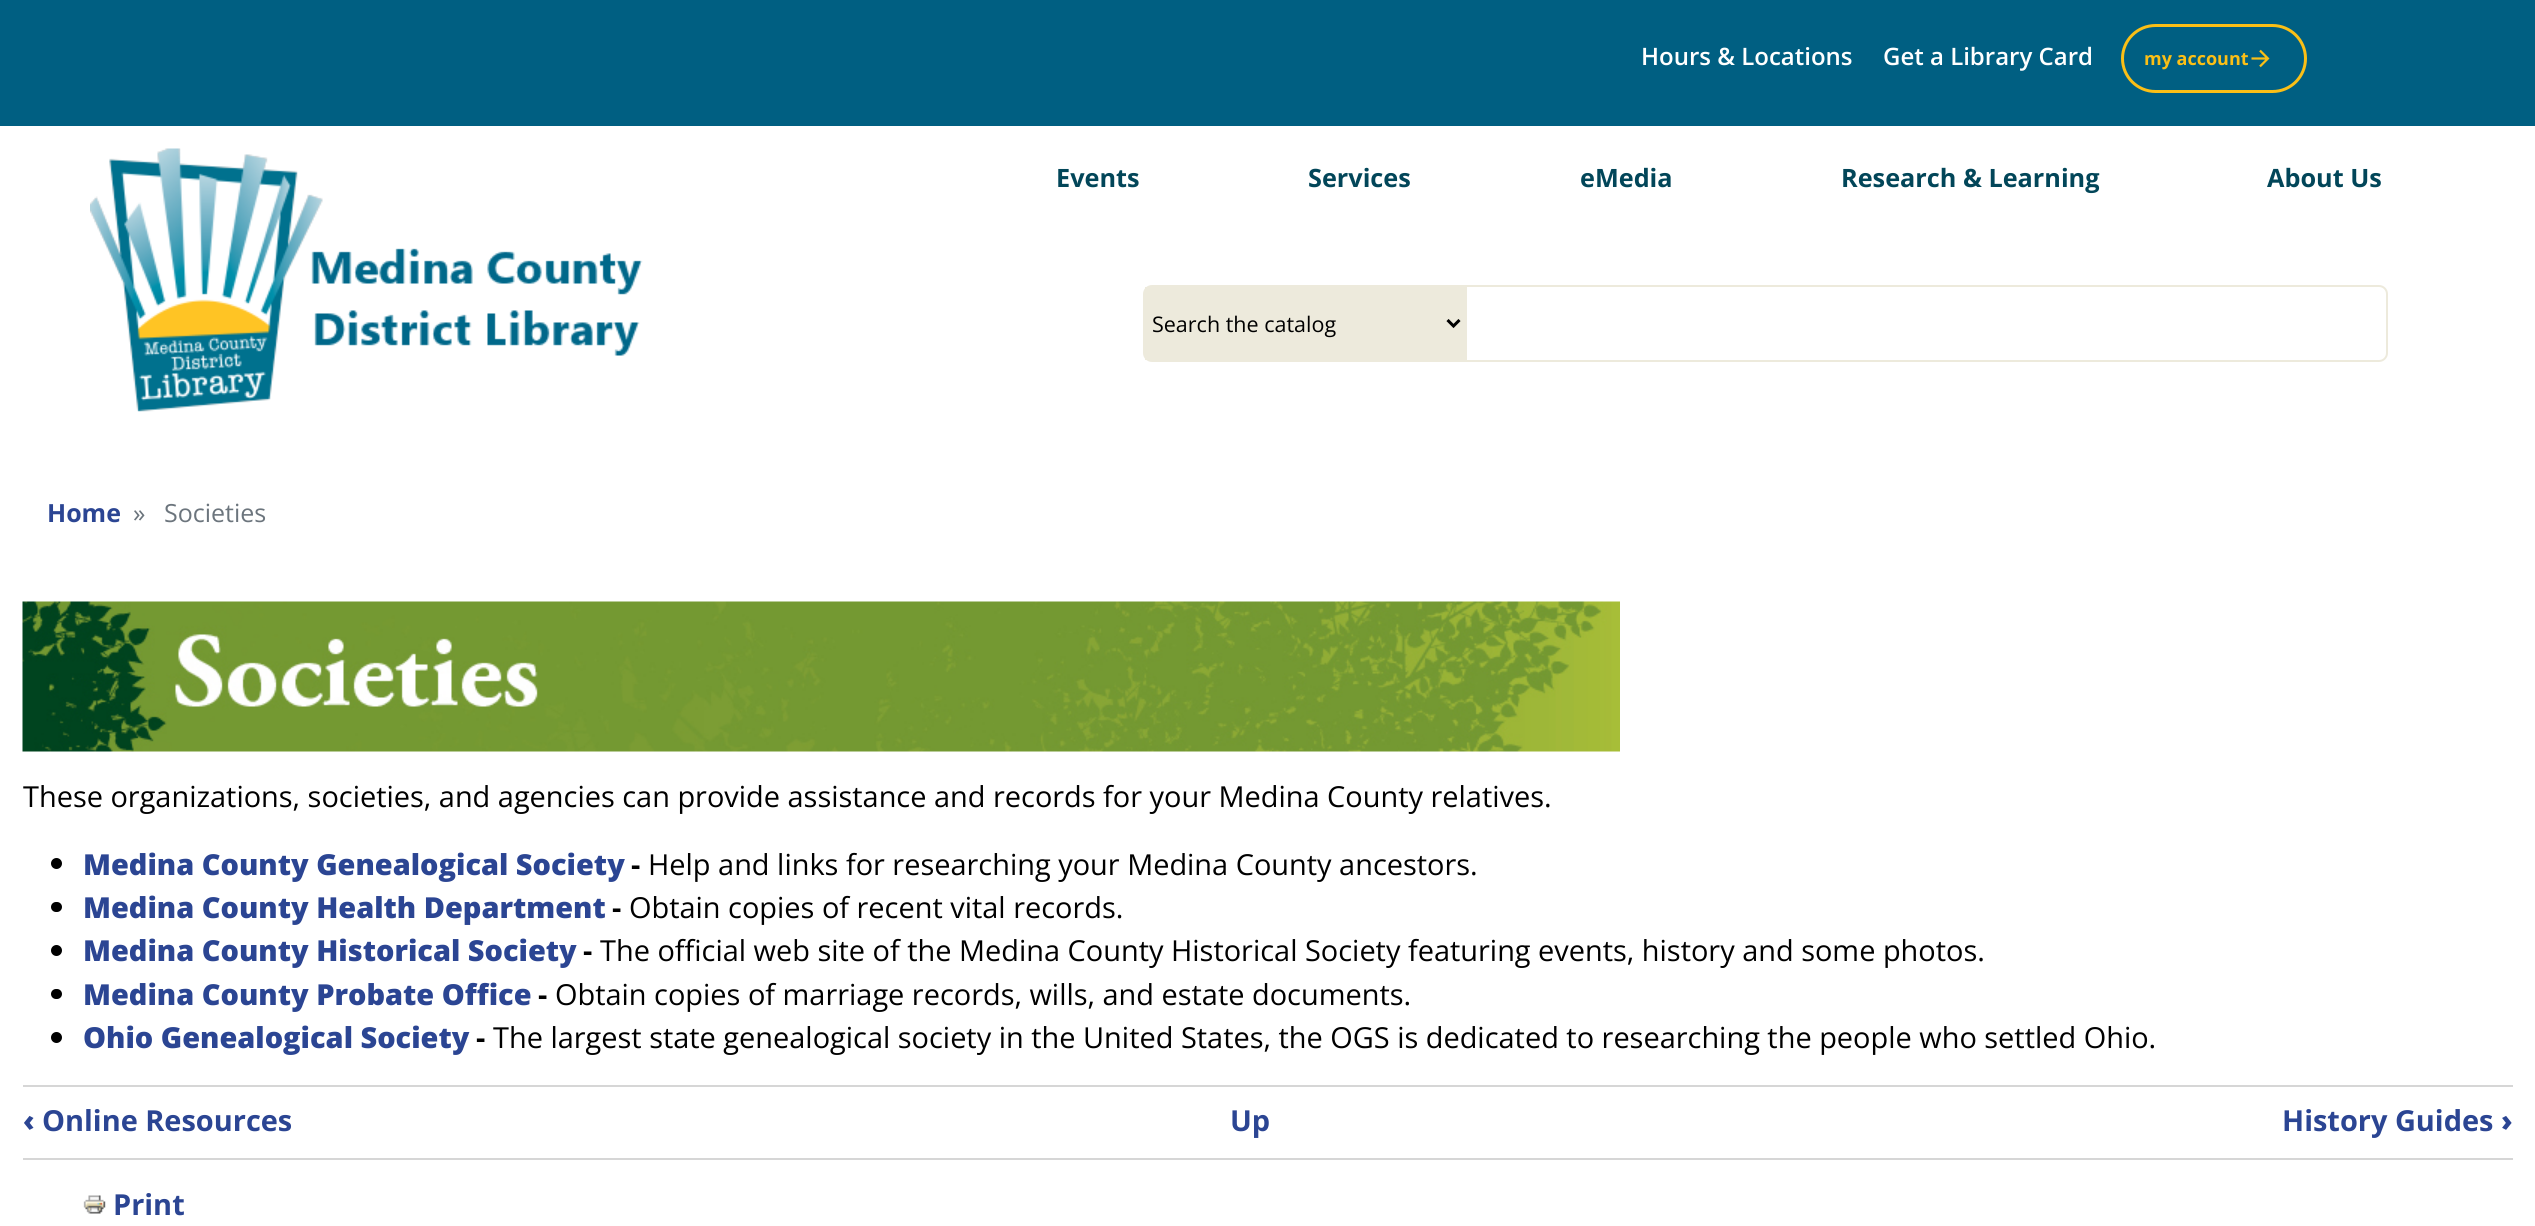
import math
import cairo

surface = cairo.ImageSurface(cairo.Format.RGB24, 2535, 1226)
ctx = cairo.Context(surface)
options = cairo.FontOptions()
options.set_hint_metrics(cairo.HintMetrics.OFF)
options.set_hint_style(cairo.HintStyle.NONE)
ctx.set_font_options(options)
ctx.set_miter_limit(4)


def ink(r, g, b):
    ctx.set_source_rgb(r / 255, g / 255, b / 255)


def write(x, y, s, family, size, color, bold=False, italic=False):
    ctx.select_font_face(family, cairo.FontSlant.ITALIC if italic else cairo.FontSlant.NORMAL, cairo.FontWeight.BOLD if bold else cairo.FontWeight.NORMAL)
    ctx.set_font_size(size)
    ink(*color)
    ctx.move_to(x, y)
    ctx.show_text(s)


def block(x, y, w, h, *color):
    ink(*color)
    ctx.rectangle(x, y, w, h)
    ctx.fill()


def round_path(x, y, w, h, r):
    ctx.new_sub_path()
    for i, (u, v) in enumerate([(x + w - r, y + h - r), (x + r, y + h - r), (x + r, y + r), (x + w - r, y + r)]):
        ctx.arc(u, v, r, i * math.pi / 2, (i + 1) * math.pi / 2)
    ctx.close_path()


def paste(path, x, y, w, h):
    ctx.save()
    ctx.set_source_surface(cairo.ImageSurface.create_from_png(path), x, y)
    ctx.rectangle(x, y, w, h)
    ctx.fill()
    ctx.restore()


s1 = dict(family="Open Sans SemiBold", size=24, color=(255, 255, 255))
s2 = dict(family="Open Sans", size=18, color=(251, 191, 22), bold=True)
s3 = dict(family="Open Sans", size=25.25, color=(2, 70, 89), bold=True)
s4 = dict(family="Open Sans", size=21.5, color=(0, 0, 0))
s5 = dict(family="Open Sans", size=25, color=(43, 69, 147), bold=True)
s6 = dict(family="Open Sans", size=25, color=(108, 117, 125))
s7 = dict(family="Open Sans", size=28.92, color=(0, 0, 0))
s8 = dict(family="Open Sans ExtraBold", size=28.92, color=(43, 69, 147))
s9 = dict(family="Open Sans", size=28.92, color=(0, 0, 0), bold=True)
s10 = dict(family="Open Sans", size=28.92, color=(43, 69, 147), bold=True)

ink(255, 255, 255)
ctx.paint()
block(0, 0, 2535, 126, 0, 95, 130)
write(1641, 65, "Hours & Locations", **s1)
write(1883, 65, "Get a Library Card", **s1)
round_path(2122.5, 25.5, 183, 66, 33)
ink(251, 191, 22)
ctx.set_line_width(3)
ctx.stroke()
write(2144, 65, "my account", **s2)
paste("pic1.png", 2251, 49, 19, 19)
paste("pic2.png", 90, 148, 553, 264)
write(1056, 187, "Events", **s3)
write(1308, 187, "Services", **s3)
write(1580, 187, "eMedia", **s3)
write(1841, 187, "Research & Learning", **s3)
write(2267, 187, "About Us", **s3)
round_path(1144, 286, 1243, 75, 8)
ink(237, 234, 220)
ctx.set_line_width(2)
ctx.stroke()
block(1145, 287, 322, 73, 237, 234, 220)
ctx.new_path()
ctx.move_to(1447.5, 320)
ctx.line_to(1453.5, 326)
ctx.line_to(1459.5, 320)
ink(0, 0, 0)
ctx.set_line_width(3)
ctx.stroke()
write(1152, 332, "Search the catalog", **s4)
write(47, 522, "Home", **s5)
write(133, 522, "»", **s6)
write(164, 522, "Societies", **s6)
paste("pic3.png", 22, 601, 1598, 151)
write(23, 807, "These organizations, societies, and agencies can provide assistance and records for your Medina County relatives.", **s7)
ctx.new_path()
ctx.arc(56.5, 863.5, 5.5, 0, 2 * math.pi)
ctx.fill()
write(83, 875, "Medina County Genealogical Society", **s8)
write(631, 875, "-", **s9)
write(648, 875, "Help and links for researching your Medina County ancestors.", **s7)
round_path(51, 902, 11, 10, 5)
ctx.fill()
write(83, 918, "Medina County Health Department", **s8)
write(612, 918, "-", **s9)
write(629, 918, "Obtain copies of recent vital records.", **s7)
ctx.new_path()
ctx.arc(56.5, 950.5, 5.5, 0, 2 * math.pi)
ctx.fill()
write(83, 961, "Medina County Historical Society", **s8)
write(583, 961, "-", **s9)
write(600, 961, "The official web site of the Medina County Historical Society featuring events, history and some photos.", **s7)
round_path(51, 989, 11, 10, 5)
ctx.fill()
write(83, 1005, "Medina County Probate Office", **s8)
write(538, 1005, "-", **s9)
write(555, 1005, "Obtain copies of marriage records, wills, and estate documents.", **s7)
ctx.new_path()
ctx.arc(56.5, 1037.5, 5.5, 0, 2 * math.pi)
ctx.fill()
write(83, 1048, "Ohio Genealogical Society", **s8)
write(476, 1048, "-", **s9)
write(493, 1048, "The largest state genealogical society in the United States, the OGS is dedicated to researching the people who settled Ohio.", **s7)
block(23, 1085, 2490, 2, 214, 214, 214)
block(23, 1158, 2490, 2, 214, 214, 214)
write(23, 1131, "‹", **s8)
write(42, 1131, "Online Resources", **s10)
write(1230, 1131, "Up", **s10)
write(2282, 1131, "History Guides", **s10)
write(2501, 1131, "›", **s8)
paste("pic4.png", 83, 1195, 23, 19)
write(113, 1215, "Print", **s10)
surface.write_to_png("screenshot.png")
